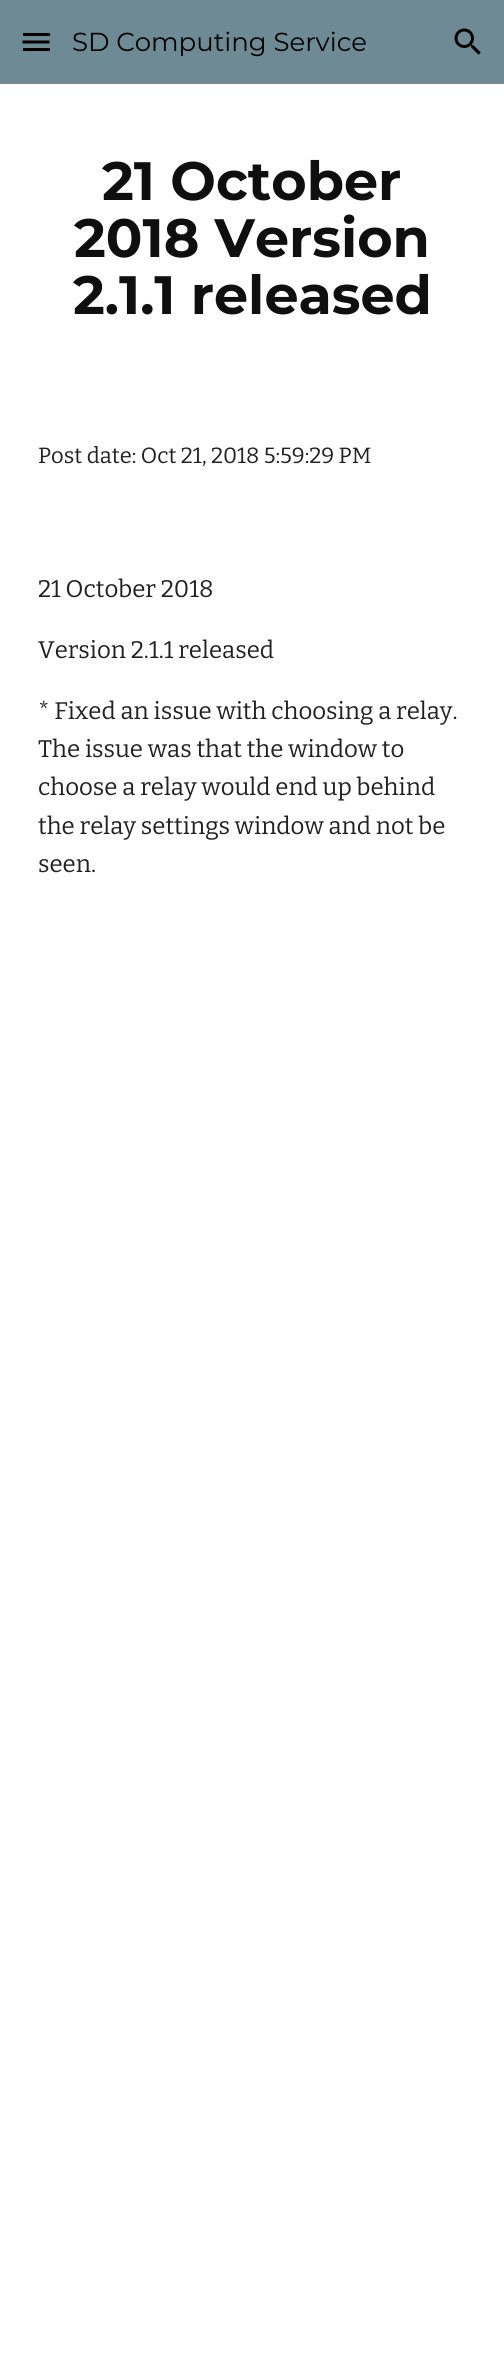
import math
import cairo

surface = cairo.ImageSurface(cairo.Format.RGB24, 504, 2370)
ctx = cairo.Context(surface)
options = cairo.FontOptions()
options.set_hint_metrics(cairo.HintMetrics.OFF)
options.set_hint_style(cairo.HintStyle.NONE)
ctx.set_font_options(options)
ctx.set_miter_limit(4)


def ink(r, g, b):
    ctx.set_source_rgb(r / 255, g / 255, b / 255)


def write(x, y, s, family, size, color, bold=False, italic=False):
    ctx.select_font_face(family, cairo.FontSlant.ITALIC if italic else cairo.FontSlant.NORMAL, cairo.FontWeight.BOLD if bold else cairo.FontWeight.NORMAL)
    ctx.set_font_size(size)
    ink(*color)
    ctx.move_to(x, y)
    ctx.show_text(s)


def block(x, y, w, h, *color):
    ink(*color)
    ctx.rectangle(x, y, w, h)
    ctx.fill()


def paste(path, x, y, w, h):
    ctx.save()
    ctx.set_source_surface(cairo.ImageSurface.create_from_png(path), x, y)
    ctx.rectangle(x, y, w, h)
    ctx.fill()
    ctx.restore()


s1 = dict(family="Montserrat", size=26, color=(0, 0, 0))
s2 = dict(family="Montserrat", size=54, color=(15, 15, 15), bold=True)
s3 = dict(family="Bitter", size=22, color=(33, 33, 33))
s4 = dict(family="Bitter", size=24, color=(33, 33, 33))

ink(255, 255, 255)
ctx.paint()
block(0, 0, 504, 84, 110, 138, 148)
block(23, 33, 27, 3, 0, 0, 0)
ctx.new_path()
ctx.move_to(22.5, 42)
ctx.line_to(49.5, 42)
ctx.set_line_width(3)
ctx.stroke()
block(23, 48, 27, 3, 0, 0, 0)
write(72, 51, "SD Computing Service", **s1)
paste("pic1.png", 454, 28, 27, 27)
write(102, 200, "21 October", **s2)
write(74, 257, "2018 Version", **s2)
write(73, 314, "2.1.1 released", **s2)
write(38, 463, "Post date: Oct 21, 2018 5:59:29 PM", **s3)
write(38, 597, "21 October 2018", **s4)
write(38, 658, "Version 2.1.1 released", **s4)
write(38, 719, "* Fixed an issue with choosing a relay.", **s4)
write(38, 757, "The issue was that the window to", **s4)
write(38, 795, "choose a relay would end up behind", **s4)
write(38, 834, "the relay settings window and not be", **s4)
write(38, 872, "seen.", **s4)
surface.write_to_png("screenshot.png")
